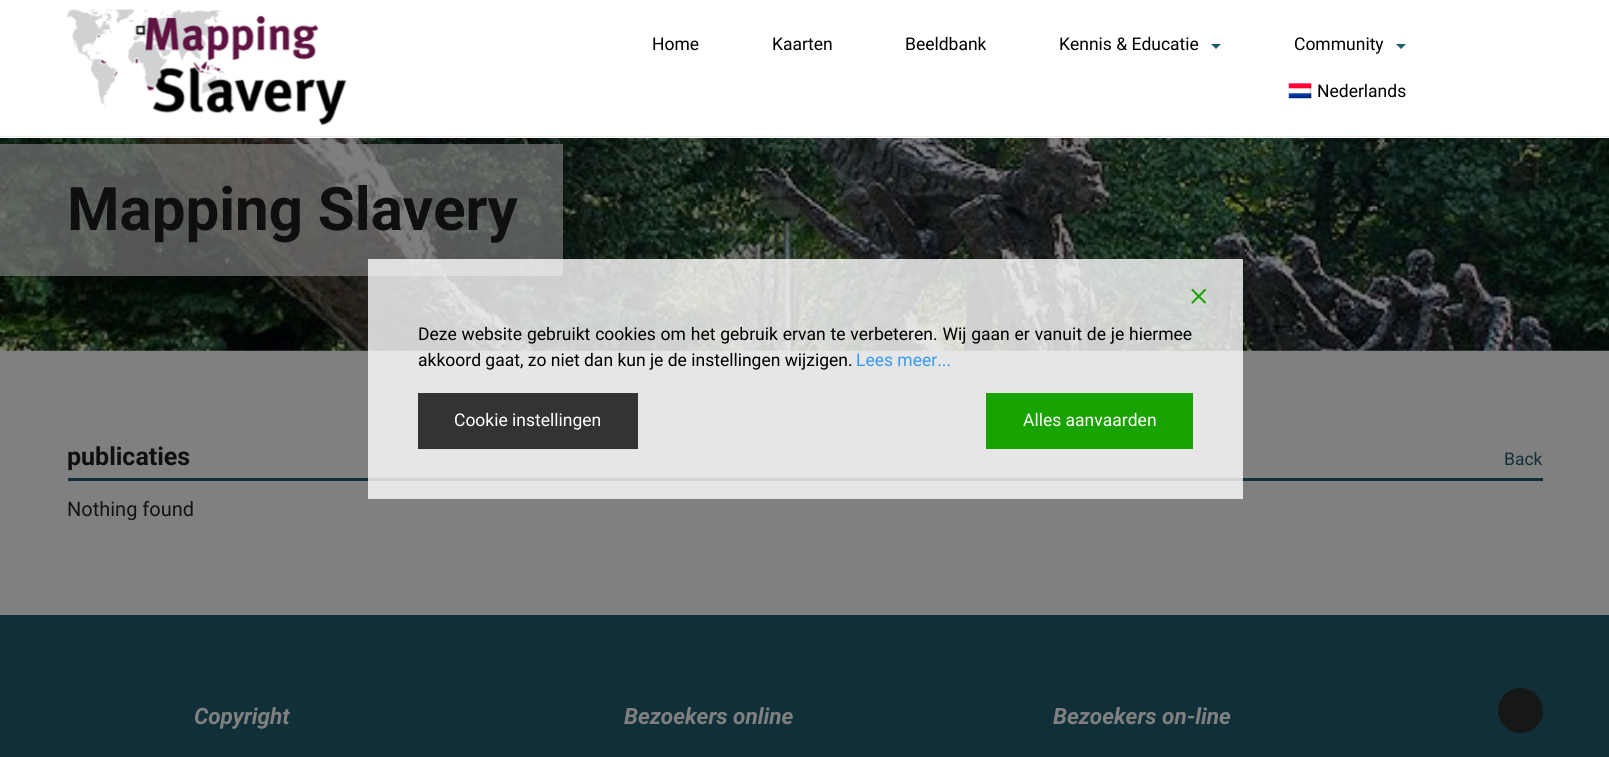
import math
import cairo

surface = cairo.ImageSurface(cairo.Format.RGB24, 1609, 757)
ctx = cairo.Context(surface)
options = cairo.FontOptions()
options.set_hint_metrics(cairo.HintMetrics.OFF)
options.set_hint_style(cairo.HintStyle.NONE)
ctx.set_font_options(options)
ctx.set_miter_limit(4)


def ink(r, g, b):
    ctx.set_source_rgb(r / 255, g / 255, b / 255)


def write(x, y, s, family, size, color, bold=False, italic=False):
    ctx.select_font_face(family, cairo.FontSlant.ITALIC if italic else cairo.FontSlant.NORMAL, cairo.FontWeight.BOLD if bold else cairo.FontWeight.NORMAL)
    ctx.set_font_size(size)
    ink(*color)
    ctx.move_to(x, y)
    ctx.show_text(s)


def write_spaced(x, y, s, letter, word):
    ctx.move_to(x, y)
    for ch in s:
        ctx.show_text(ch)
        ctx.rel_move_to(letter + word * (ch == ' '), 0)


def block(x, y, w, h, *color):
    ink(*color)
    ctx.rectangle(x, y, w, h)
    ctx.fill()


def paste(path, x, y, w, h):
    ctx.save()
    ctx.set_source_surface(cairo.ImageSurface.create_from_png(path), x, y)
    ctx.rectangle(x, y, w, h)
    ctx.fill()
    ctx.restore()


s1 = dict(family="Roboto", size=17.5, color=(0, 0, 0))
s2 = dict(family="Roboto", size=60, color=(15, 15, 15), bold=True)
s3 = dict(family="Roboto", size=17.5, color=(53, 155, 245))
s4 = dict(family="Roboto", size=17.5, color=(255, 255, 255))
s5 = dict(family="Roboto", size=25, color=(15, 15, 15), bold=True)
s6 = dict(family="Roboto", size=17.5, color=(16, 47, 56))
s7 = dict(family="Roboto", size=20, color=(17, 19, 21))
s8 = dict(family="Roboto", size=22.5, color=(128, 128, 128), bold=True, italic=True)

ink(128, 128, 128)
ctx.paint()
block(0, 0, 1609, 138, 255, 255, 255)
block(0, 136, 1609, 1, 237, 237, 237)
paste("pic1.png", 67, 9, 280, 117)
write(652, 50, "Home", **s1)
write(772, 50, "Kaarten", **s1)
write(905, 50, "Beeldbank", **s1)
write(1059, 50, "Kennis & Educatie", **s1)
ink(32, 94, 111)
ctx.new_path()
ctx.move_to(1211, 44)
ctx.line_to(1221, 44)
ctx.line_to(1216, 49)
ctx.close_path()
ctx.fill()
write(1294, 50, "Community", **s1)
ink(32, 94, 111)
ctx.new_path()
ctx.move_to(1396, 44)
ctx.line_to(1406, 44)
ctx.line_to(1401, 49)
ctx.close_path()
ctx.fill()
paste("pic2.png", 1288, 83, 24, 16)
write(1317, 97, "Nederlands", **s1)
paste("pic3.png", 0, 138, 1609, 213)
ctx.set_source_rgba(0.502, 0.502, 0.502, 0.65)
ctx.rectangle(0, 144, 563, 132)
ctx.fill()
write(67, 230, "Mapping Slavery", **s2)
block(68, 478, 1475, 3, 16, 47, 56)
ctx.set_source_rgba(1, 1, 1, 0.8)
ctx.rectangle(368, 259, 875, 240)
ctx.fill()
paste("pic4.png", 1191, 289, 15, 15)
ctx.select_font_face("Roboto")
ctx.set_font_size(17.5)
ink(0, 0, 0)
write_spaced(418, 340, "Deze website gebruikt cookies om het gebruik ervan te verbeteren. Wij gaan er vanuit de je hiermee", 0, 0.5)
write(418, 366, "akkoord gaat, zo niet dan kun je de instellingen wijzigen.", **s1)
write(856, 366, "Lees meer...", **s3)
block(418, 393, 220, 56, 51, 51, 51)
write(454, 426, "Cookie instellingen", **s4)
block(986, 393, 207, 56, 24, 163, 0)
write(1023, 426, "Alles aanvaarden", **s4)
write(67, 465, "publicaties", **s5)
write(1504, 465, "Back", **s6)
write(67, 516, "Nothing found", **s7)
block(0, 615, 1609, 142, 16, 47, 56)
write(194, 724, "Copyright", **s8)
write(624, 724, "Bezoekers online", **s8)
write(1053, 724, "Bezoekers on-line", **s8)
ink(22, 23, 23)
ctx.new_path()
ctx.arc(1520.5, 710.5, 22.5, 0, 2 * math.pi)
ctx.fill()
surface.write_to_png("screenshot.png")
